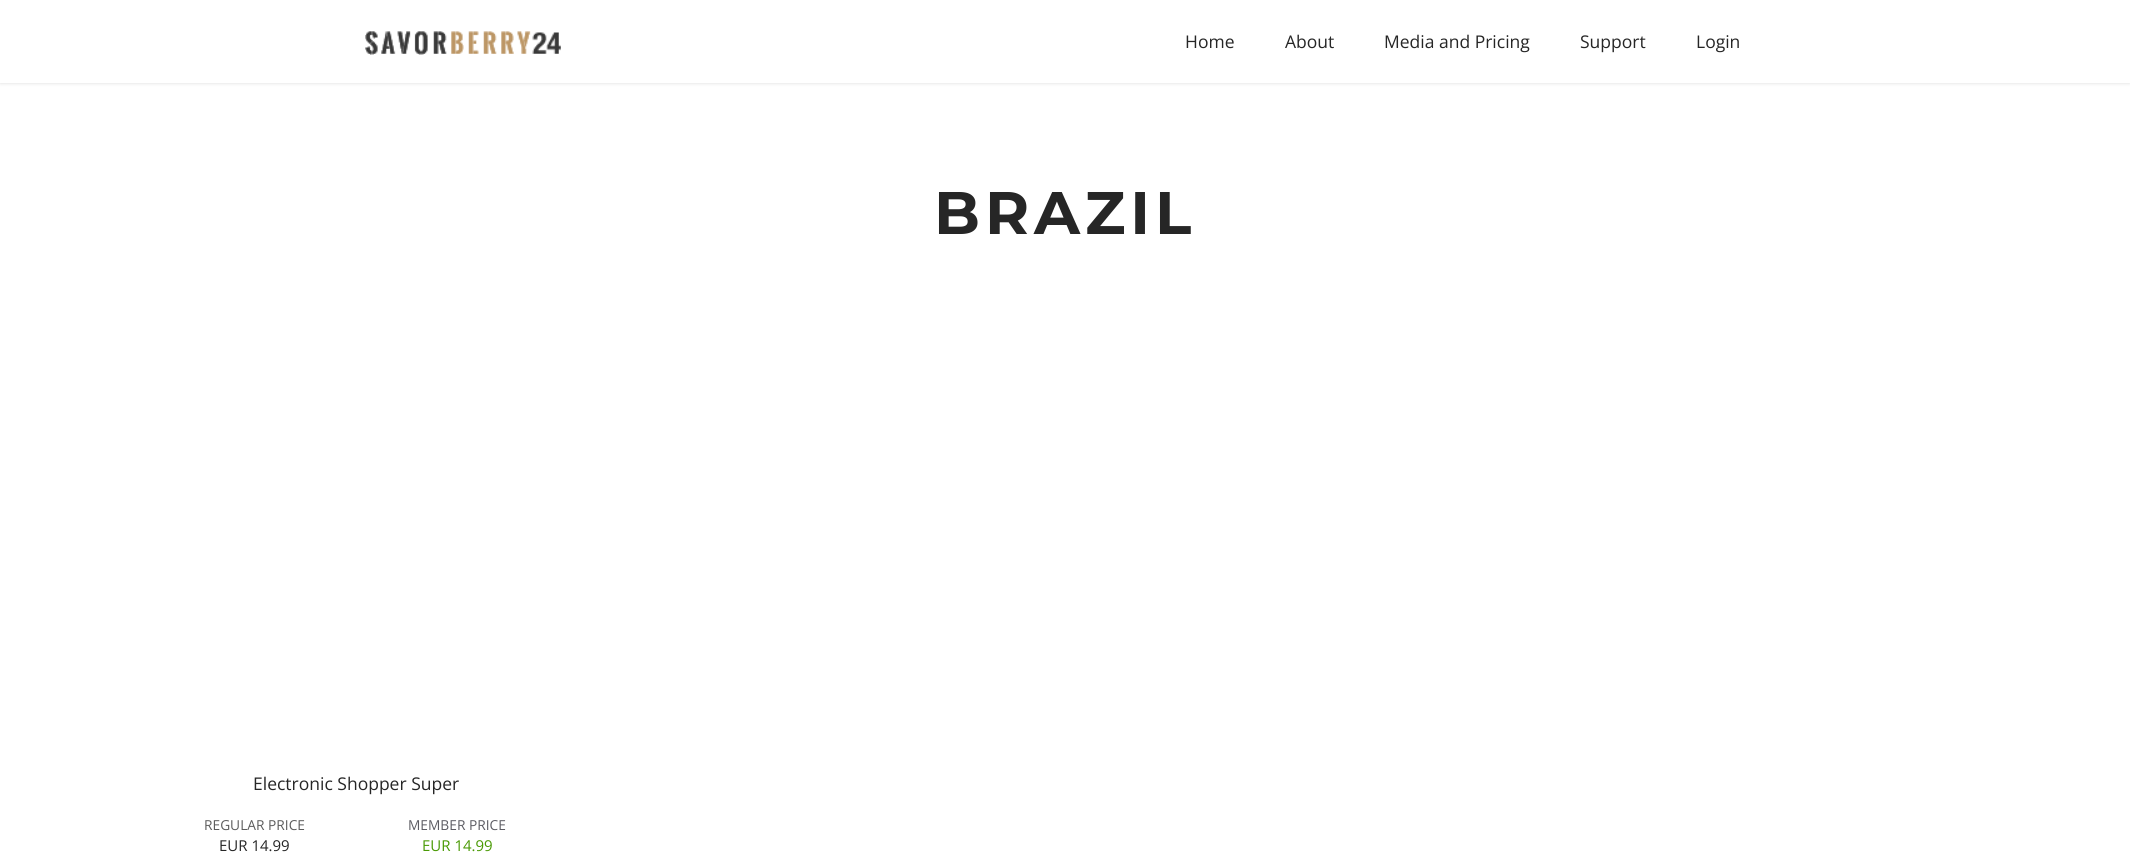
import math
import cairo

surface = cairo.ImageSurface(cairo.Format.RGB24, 2130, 860)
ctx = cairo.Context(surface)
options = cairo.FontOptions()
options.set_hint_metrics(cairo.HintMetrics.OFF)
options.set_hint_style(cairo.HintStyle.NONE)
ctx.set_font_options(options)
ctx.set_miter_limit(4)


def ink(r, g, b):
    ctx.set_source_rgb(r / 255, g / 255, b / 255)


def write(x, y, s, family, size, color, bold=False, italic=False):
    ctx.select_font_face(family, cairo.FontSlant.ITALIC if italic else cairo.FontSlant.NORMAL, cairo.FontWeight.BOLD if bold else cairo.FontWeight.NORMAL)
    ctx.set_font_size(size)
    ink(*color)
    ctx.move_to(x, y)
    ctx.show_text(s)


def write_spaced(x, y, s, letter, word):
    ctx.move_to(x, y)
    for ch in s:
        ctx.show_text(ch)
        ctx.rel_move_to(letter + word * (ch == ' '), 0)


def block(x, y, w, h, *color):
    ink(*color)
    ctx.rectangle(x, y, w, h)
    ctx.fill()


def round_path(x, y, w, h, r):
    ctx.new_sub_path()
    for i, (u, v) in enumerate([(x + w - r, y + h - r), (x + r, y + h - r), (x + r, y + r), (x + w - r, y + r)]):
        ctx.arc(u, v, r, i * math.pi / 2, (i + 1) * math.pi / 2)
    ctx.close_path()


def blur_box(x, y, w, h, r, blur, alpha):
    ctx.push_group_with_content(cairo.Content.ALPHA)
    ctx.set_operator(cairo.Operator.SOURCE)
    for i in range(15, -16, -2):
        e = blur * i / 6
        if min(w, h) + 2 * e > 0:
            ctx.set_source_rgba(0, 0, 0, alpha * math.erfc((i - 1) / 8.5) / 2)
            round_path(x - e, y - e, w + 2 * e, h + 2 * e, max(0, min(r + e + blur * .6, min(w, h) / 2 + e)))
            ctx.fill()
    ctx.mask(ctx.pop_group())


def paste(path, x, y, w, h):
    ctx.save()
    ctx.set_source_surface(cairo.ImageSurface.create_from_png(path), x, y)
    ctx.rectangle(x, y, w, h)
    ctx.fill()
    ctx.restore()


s1 = dict(family="Open Sans", size=17.5, color=(38, 38, 38))
s2 = dict(family="Open Sans", size=13.75, color=(92, 92, 92))
s3 = dict(family="Open Sans", size=15, color=(38, 38, 38))
s4 = dict(family="Open Sans", size=13.75, color=(92, 92, 99))
s5 = dict(family="Open Sans", size=15, color=(74, 154, 5))

ink(255, 255, 255)
ctx.paint()
ink(0, 0, 0)
blur_box(0, 0, 2130, 83, 0, 2, 0.14)
block(0, 0, 2130, 83, 255, 255, 255)
paste("pic1.png", 365, 31, 196, 24)
write(1185, 48, "Home", **s1)
write(1285, 48, "About", **s1)
write(1384, 48, "Media and Pricing", **s1)
write(1580, 48, "Support", **s1)
write(1696, 48, "Login", **s1)
ctx.select_font_face("Montserrat", cairo.FontSlant.NORMAL, cairo.FontWeight.BOLD)
ctx.set_font_size(60)
write_spaced(934, 234, "BRAZIL", 5, 0)
write(253, 790, "Electronic Shopper Super", **s1)
write(204, 830, "REGULAR PRICE", **s2)
write(219, 851, "EUR 14.99", **s3)
write(408, 830, "MEMBER PRICE", **s4)
write(422, 851, "EUR 14.99", **s5)
surface.write_to_png("screenshot.png")
